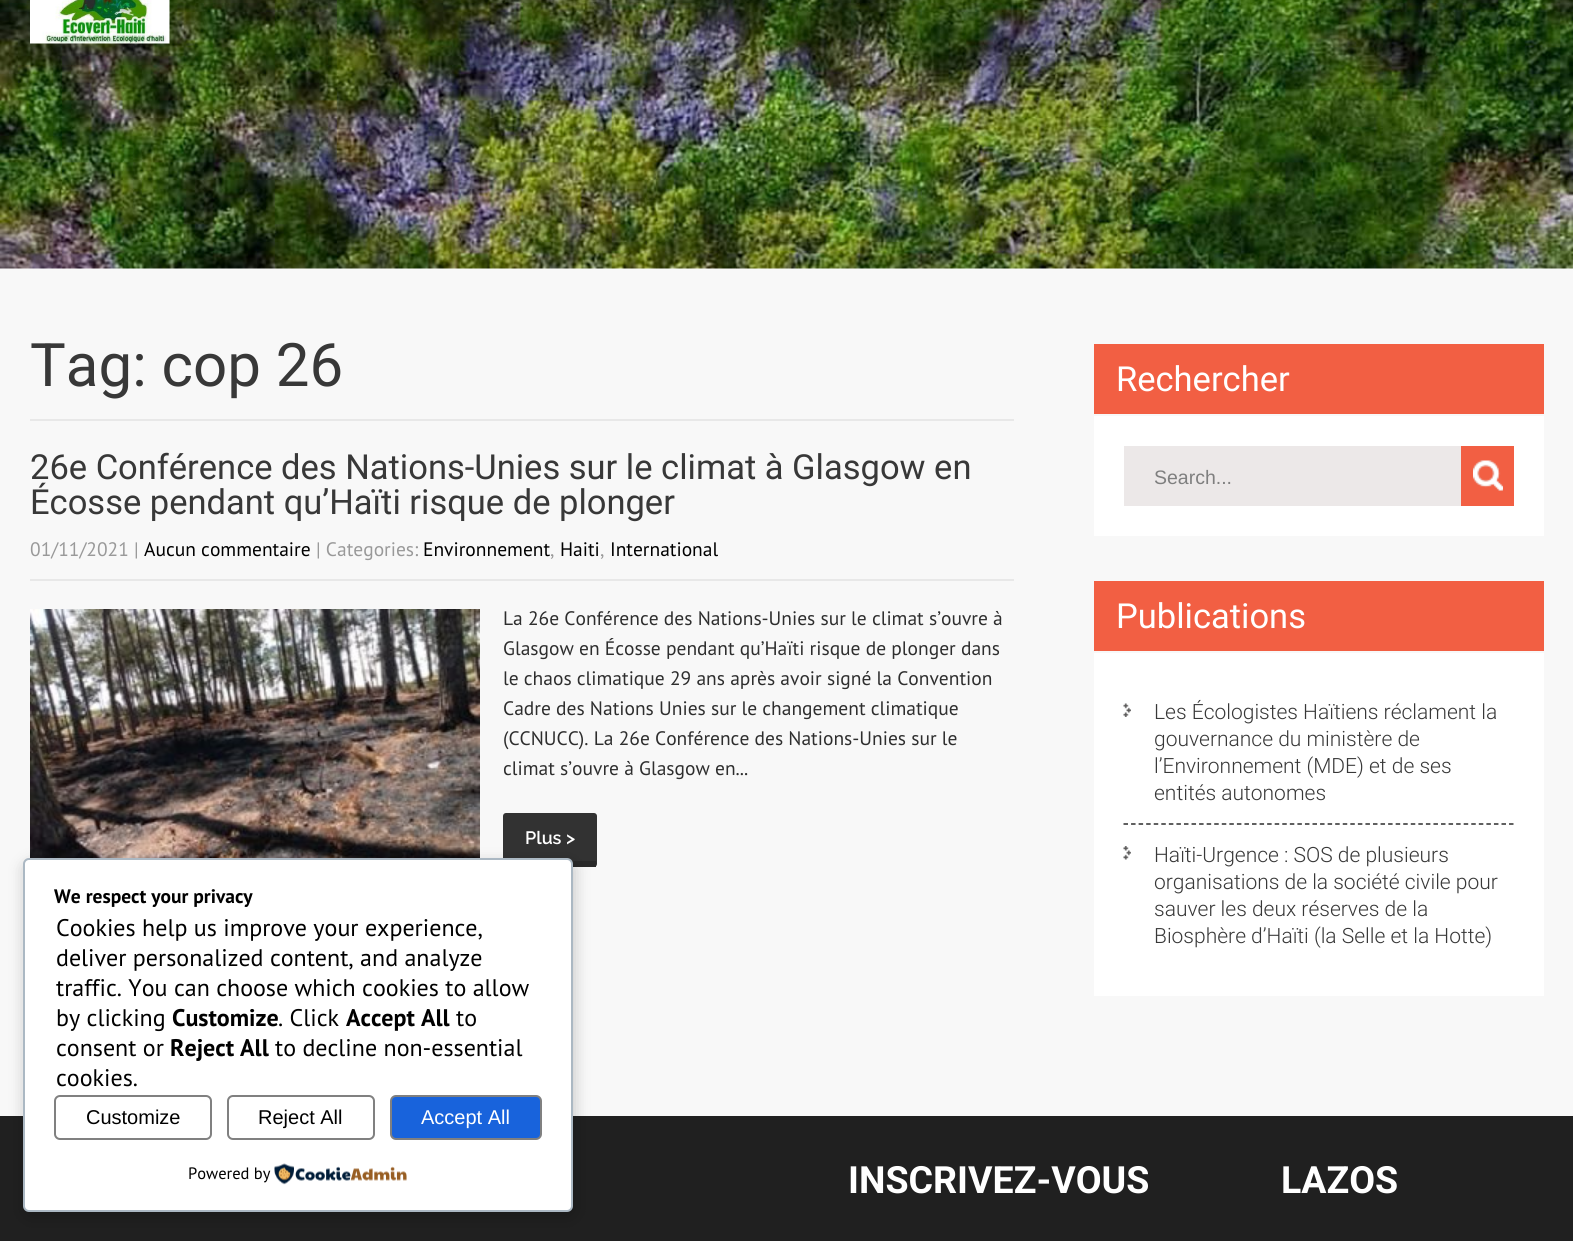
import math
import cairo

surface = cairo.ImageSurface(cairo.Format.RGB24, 1573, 1241)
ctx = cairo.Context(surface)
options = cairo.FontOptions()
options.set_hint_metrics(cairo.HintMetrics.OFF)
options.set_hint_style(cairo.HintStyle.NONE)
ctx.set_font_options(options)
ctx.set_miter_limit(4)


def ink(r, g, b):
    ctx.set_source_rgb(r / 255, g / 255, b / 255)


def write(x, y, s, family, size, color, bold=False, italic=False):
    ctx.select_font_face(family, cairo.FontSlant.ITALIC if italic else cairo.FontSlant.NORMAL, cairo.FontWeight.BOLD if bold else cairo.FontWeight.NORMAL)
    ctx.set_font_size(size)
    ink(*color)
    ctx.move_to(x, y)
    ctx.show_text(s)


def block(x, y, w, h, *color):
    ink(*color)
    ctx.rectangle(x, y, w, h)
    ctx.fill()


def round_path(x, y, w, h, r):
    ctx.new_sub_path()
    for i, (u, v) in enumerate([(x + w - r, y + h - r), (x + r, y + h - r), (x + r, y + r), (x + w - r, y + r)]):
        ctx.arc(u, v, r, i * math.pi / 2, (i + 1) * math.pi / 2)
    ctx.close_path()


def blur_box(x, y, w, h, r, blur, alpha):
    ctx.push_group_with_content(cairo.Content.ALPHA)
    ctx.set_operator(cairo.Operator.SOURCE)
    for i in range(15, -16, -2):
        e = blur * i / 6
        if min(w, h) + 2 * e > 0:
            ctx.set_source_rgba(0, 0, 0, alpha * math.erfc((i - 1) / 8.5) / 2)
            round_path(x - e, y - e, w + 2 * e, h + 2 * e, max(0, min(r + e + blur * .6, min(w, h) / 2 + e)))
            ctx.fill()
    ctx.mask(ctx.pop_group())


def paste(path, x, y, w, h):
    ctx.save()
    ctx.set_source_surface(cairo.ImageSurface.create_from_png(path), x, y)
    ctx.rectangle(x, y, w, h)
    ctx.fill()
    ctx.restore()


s1 = dict(family="Roboto", size=60, color=(56, 56, 56))
s2 = dict(family="Roboto", size=34.5, color=(56, 56, 56))
s3 = dict(family="PT Sans", size=19.5, color=(153, 153, 153))
s4 = dict(family="PT Sans", size=19.5, color=(0, 0, 0))
s5 = dict(family="PT Sans", size=19.5, color=(46, 46, 46))
s6 = dict(family="Raleway SemiBold", size=18, color=(255, 255, 255))
s7 = dict(family="Roboto", size=34.5, color=(255, 255, 255))
s8 = dict(family="Liberation Sans", size=19.5, color=(127, 127, 127))
s9 = dict(family="Roboto Light", size=21, color=(56, 56, 56))
s10 = dict(family="PT Sans", size=19.5, color=(0, 0, 0), bold=True)
s11 = dict(family="PT Sans", size=24, color=(0, 0, 0))
s12 = dict(family="PT Sans", size=24, color=(0, 0, 0), bold=True)
s13 = dict(family="Liberation Sans", size=20, color=(0, 0, 0))
s14 = dict(family="Liberation Sans", size=20, color=(255, 255, 255))
s15 = dict(family="PT Sans", size=16.5, color=(0, 0, 0))
s16 = dict(family="Roboto", size=37.5, color=(255, 255, 255), bold=True)

ink(248, 248, 248)
ctx.paint()
paste("pic1.png", 0, 0, 1573, 269)
ctx.set_source_rgba(0, 0, 0, 0.1)
ctx.rectangle(0, 0, 1573, 89)
ctx.fill()
paste("pic2.png", 30, 0, 140, 44)
block(30, 419, 984, 2, 232, 232, 232)
write(30, 386, "Tag: cop 26", **s1)
write(30, 479, "26e Conférence des Nations-Unies sur le climat à Glasgow en", **s2)
write(30, 514, "Écosse pendant qu’Haïti risque de plonger", **s2)
block(30, 579, 984, 2, 232, 232, 232)
write(30, 556, "01/11/2021 |", **s3)
write(144, 556, "Aucun commentaire", **s4)
write(316, 556, "| Categories:", **s3)
write(423, 556, "Environnement", **s4)
write(550, 556, ",", **s3)
write(560, 556, "Haiti", **s4)
write(600, 556, ",", **s3)
write(610, 556, "International", **s4)
paste("pic3.png", 30, 609, 450, 249)
write(503, 625, "La 26e Conférence des Nations-Unies sur le climat s’ouvre à", **s5)
write(503, 655, "Glasgow en Écosse pendant qu’Haïti risque de plonger dans", **s5)
write(503, 685, "le chaos climatique 29 ans après avoir signé la Convention", **s5)
write(503, 715, "Cadre des Nations Unies sur le changement climatique", **s5)
write(503, 745, "(CCNUCC). La 26e Conférence des Nations-Unies sur le", **s5)
write(503, 775, "climat s’ouvre à Glasgow en...", **s5)
ink(50, 50, 50)
round_path(503, 813, 94, 54, 3)
ctx.fill()
block(572, 861, 24, 6, 41, 41, 41)
write(525, 844, "Plus >", **s6)
block(1094, 344, 450, 70, 242, 95, 67)
write(1116, 391, "Rechercher", **s7)
block(1094, 416, 450, 120, 255, 255, 255)
block(1124, 446, 337, 60, 236, 232, 232)
write(1154, 484, "Search...", **s8)
block(1461, 446, 53, 60, 242, 95, 67)
paste("pic4.png", 1473, 460, 30, 31)
block(1094, 581, 450, 70, 242, 95, 67)
write(1116, 628, "Publications", **s7)
block(1094, 653, 450, 343, 255, 255, 255)
paste("pic5.png", 1123, 703, 8, 14)
ctx.new_path()
ctx.move_to(1123.5, 824)
ctx.line_to(1513.5, 824)
ink(44, 44, 44)
ctx.set_line_width(1.5)
ctx.set_dash([4.5, 3.06])
ctx.stroke()
write(1154, 719, "Les Écologistes Haïtiens réclament la", **s9)
write(1154, 746, "gouvernance du ministère de", **s9)
write(1154, 773, "l’Environnement (MDE) et de ses", **s9)
write(1154, 800, "entités autonomes", **s9)
paste("pic6.png", 1123, 846, 8, 14)
write(1154, 862, "Haïti-Urgence : SOS de plusieurs", **s9)
write(1154, 889, "organisations de la société civile pour", **s9)
write(1154, 916, "sauver les deux réserves de la", **s9)
write(1154, 943, "Biosphère d’Haïti (la Selle et la Hotte)", **s9)
block(0, 1116, 1573, 125, 32, 32, 32)
ink(0, 0, 0)
blur_box(24, 863, 551, 354, 6, 7.5, 0.2)
ink(255, 255, 255)
round_path(24, 859, 548, 352, 5)
ctx.fill_preserve()
ink(171, 184, 195)
ctx.set_line_width(2)
ctx.set_dash([])
ctx.stroke()
write(54, 903, "We respect your privacy", **s10)
write(56, 936, "Cookies help us improve your experience,", **s11)
write(56, 966, "deliver personalized content, and analyze", **s11)
write(56, 996, "traffic. You can choose which cookies to allow", **s11)
write(56, 1026, "by clicking", **s11)
write(172, 1026, "Customize", **s12)
write(278, 1026, ". Click", **s11)
write(346, 1026, "Accept All", **s12)
write(456, 1026, "to", **s11)
write(56, 1056, "consent or", **s11)
write(170, 1056, "Reject All", **s12)
write(275, 1056, "to decline non-essential", **s11)
write(56, 1086, "cookies.", **s11)
round_path(55, 1096, 156, 43, 5)
ink(128, 128, 128)
ctx.stroke()
write(86, 1124, "Customize", **s13)
round_path(228, 1096, 146, 43, 5)
ink(128, 128, 128)
ctx.stroke()
write(258, 1124, "Reject All", **s13)
ink(24, 99, 220)
round_path(391, 1096, 150, 43, 5)
ctx.fill_preserve()
ink(128, 128, 128)
ctx.stroke()
write(421, 1124, "Accept All", **s14)
write(188, 1179, "Powered by", **s15)
paste("pic7.png", 274, 1163, 133, 22)
write(848, 1193, "INSCRIVEZ-VOUS", **s16)
write(1281, 1193, "LAZOS", **s16)
surface.write_to_png("screenshot.png")
